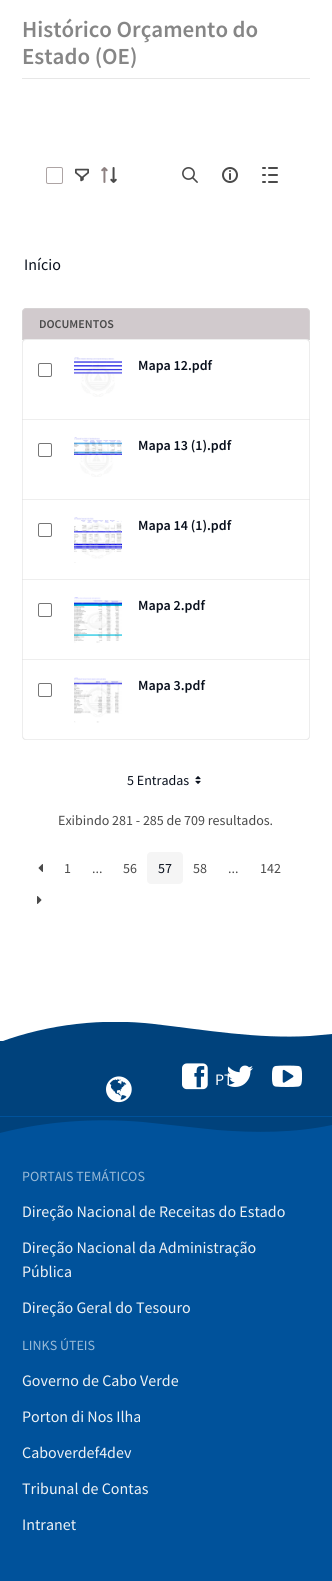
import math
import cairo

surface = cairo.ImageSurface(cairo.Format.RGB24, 332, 1581)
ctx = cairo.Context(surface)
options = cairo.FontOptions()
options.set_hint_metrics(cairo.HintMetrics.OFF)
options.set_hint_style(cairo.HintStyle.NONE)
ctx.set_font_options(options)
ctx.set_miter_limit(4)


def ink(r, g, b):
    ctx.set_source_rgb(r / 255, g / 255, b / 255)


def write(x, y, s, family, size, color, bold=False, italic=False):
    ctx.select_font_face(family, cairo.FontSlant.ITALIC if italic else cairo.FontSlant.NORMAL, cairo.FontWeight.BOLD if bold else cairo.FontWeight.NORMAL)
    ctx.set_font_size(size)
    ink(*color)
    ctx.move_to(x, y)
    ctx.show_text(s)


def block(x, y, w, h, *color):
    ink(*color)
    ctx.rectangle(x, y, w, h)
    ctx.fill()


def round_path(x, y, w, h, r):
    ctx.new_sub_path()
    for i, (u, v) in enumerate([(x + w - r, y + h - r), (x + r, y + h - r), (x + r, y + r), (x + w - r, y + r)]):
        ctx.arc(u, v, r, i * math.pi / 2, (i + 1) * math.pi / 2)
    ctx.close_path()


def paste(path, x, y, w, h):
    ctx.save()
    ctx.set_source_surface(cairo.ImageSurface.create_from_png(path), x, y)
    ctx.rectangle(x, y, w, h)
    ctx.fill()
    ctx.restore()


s1 = dict(family="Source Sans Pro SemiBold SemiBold", size=23, color=(134, 134, 134))
s2 = dict(family="Source Sans Pro", size=16, color=(9, 16, 29))
s3 = dict(family="Source Sans Pro SemiBold SemiBold", size=12, color=(74, 74, 74))
s4 = dict(family="Source Sans Pro SemiBold SemiBold", size=14, color=(9, 16, 29))
s5 = dict(family="Source Sans Pro", size=14, color=(9, 16, 29))
s6 = dict(family="Source Sans Pro", size=14, color=(74, 74, 74))
s7 = dict(family="Source Sans Pro", size=16, color=(255, 255, 255))
s8 = dict(family="Source Sans Pro", size=14, color=(153, 186, 215))
s9 = dict(family="Source Sans Pro", size=16, color=(238, 241, 244))

ink(255, 255, 255)
ctx.paint()
write(22, 37, "Histórico Orçamento do", **s1)
write(22, 64, "Estado (OE)", **s1)
block(22, 78, 288, 1, 231, 231, 231)
round_path(46.5, 167.5, 16, 16, 1.5)
ink(173, 164, 164)
ctx.set_line_width(1)
ctx.stroke()
paste("pic1.png", 75, 168, 14, 14)
paste("pic2.png", 101, 167, 16, 16)
paste("pic3.png", 182, 167, 16, 16)
paste("pic4.png", 222, 167, 16, 16)
paste("pic5.png", 262, 167, 16, 16)
write(24, 270, "Início", **s2)
ink(209, 202, 205)
ctx.new_path()
ctx.move_to(26, 308)
ctx.line_to(306, 308)
ctx.curve_to(308, 308, 310, 310, 310, 312)
ctx.line_to(310, 340)
ctx.line_to(22, 340)
ctx.line_to(22, 312)
ctx.curve_to(22, 310, 24, 308, 26, 308)
ctx.close_path()
ctx.fill()
ctx.new_path()
ctx.move_to(26, 308.5)
ctx.line_to(306, 308.5)
ctx.curve_to(308, 308.5, 309.5, 310, 309.5, 312)
ctx.line_to(309.5, 339.5)
ctx.line_to(22.5, 339.5)
ctx.line_to(22.5, 312)
ctx.curve_to(22.5, 310, 24, 308.5, 26, 308.5)
ctx.close_path()
ctx.set_source_rgba(0.863, 0.863, 0.863, 0.5)
ctx.stroke()
write(39, 328, "DOCUMENTOS", **s3)
ink(255, 255, 255)
ctx.new_path()
ctx.move_to(26, 339)
ctx.line_to(306, 339)
ctx.curve_to(308, 339, 310, 341, 310, 343)
ctx.line_to(310, 420)
ctx.line_to(22, 420)
ctx.line_to(22, 343)
ctx.curve_to(22, 341, 24, 339, 26, 339)
ctx.close_path()
ctx.fill()
ctx.set_source_rgba(0.863, 0.863, 0.863, 0.5)
ctx.new_path()
ctx.move_to(26, 340)
ctx.line_to(306, 340)
ctx.curve_to(308, 340, 310, 342, 310, 344)
ctx.curve_to(310, 341, 309, 339, 306, 339)
ctx.line_to(26, 339)
ctx.curve_to(23, 339, 22, 341, 22, 344)
ctx.curve_to(22, 342, 24, 340, 26, 340)
ctx.close_path()
ctx.fill()
ctx.new_path()
ctx.move_to(309, 420)
ctx.line_to(310, 420)
ctx.line_to(310, 343)
ctx.curve_to(310, 341, 308, 339, 306, 339)
ctx.line_to(305, 339)
ctx.curve_to(307, 339, 309, 341, 309, 343)
ctx.close_path()
ctx.fill()
ctx.new_path()
ctx.move_to(26, 339)
ctx.curve_to(24, 339, 22, 341, 22, 343)
ctx.line_to(22, 420)
ctx.line_to(23, 420)
ctx.line_to(23, 343)
ctx.curve_to(23, 341, 25, 339, 27, 339)
ctx.close_path()
ctx.fill()
round_path(38.5, 363.5, 13, 13, 1.5)
ink(118, 118, 118)
ctx.stroke()
paste("pic6.png", 74, 357, 48, 40)
write(138, 370, "Mapa 12.pdf", **s4)
block(22, 419, 288, 1, 238, 238, 238)
ctx.set_source_rgba(0.863, 0.863, 0.863, 0.5)
ctx.rectangle(309, 419, 1, 81)
ctx.fill()
ctx.rectangle(22, 419, 1, 81)
ctx.fill()
round_path(38.5, 443.5, 13, 13, 1.5)
ink(118, 118, 118)
ctx.stroke()
paste("pic7.png", 74, 437, 48, 40)
write(138, 450, "Mapa 13 (1).pdf", **s4)
block(22, 499, 288, 1, 238, 238, 238)
ctx.set_source_rgba(0.863, 0.863, 0.863, 0.5)
ctx.rectangle(309, 499, 1, 81)
ctx.fill()
ctx.rectangle(22, 499, 1, 81)
ctx.fill()
round_path(38.5, 523.5, 13, 13, 1.5)
ink(118, 118, 118)
ctx.stroke()
paste("pic8.png", 74, 517, 48, 46)
write(138, 530, "Mapa 14 (1).pdf", **s4)
block(22, 579, 288, 1, 238, 238, 238)
ctx.set_source_rgba(0.863, 0.863, 0.863, 0.5)
ctx.rectangle(309, 579, 1, 81)
ctx.fill()
ctx.rectangle(22, 579, 1, 81)
ctx.fill()
round_path(38.5, 603.5, 13, 13, 1.5)
ink(118, 118, 118)
ctx.stroke()
paste("pic9.png", 74, 597, 48, 46)
write(138, 610, "Mapa 2.pdf", **s4)
ink(255, 255, 255)
ctx.new_path()
ctx.move_to(22, 659)
ctx.line_to(310, 659)
ctx.line_to(310, 736)
ctx.curve_to(310, 738, 308, 740, 306, 740)
ctx.line_to(26, 740)
ctx.curve_to(24, 740, 22, 738, 22, 736)
ctx.close_path()
ctx.fill()
ink(238, 238, 238)
ctx.new_path()
ctx.move_to(22, 735)
ctx.curve_to(22, 738, 23, 740, 26, 740)
ctx.line_to(306, 740)
ctx.curve_to(309, 740, 310, 738, 310, 735)
ctx.curve_to(310, 737, 308, 739, 306, 739)
ctx.line_to(26, 739)
ctx.curve_to(24, 739, 22, 737, 22, 735)
ctx.close_path()
ctx.fill()
block(22, 659, 288, 1, 238, 238, 238)
ctx.set_source_rgba(0.863, 0.863, 0.863, 0.5)
ctx.new_path()
ctx.move_to(305, 740)
ctx.line_to(306, 740)
ctx.curve_to(308, 740, 310, 738, 310, 736)
ctx.line_to(310, 659)
ctx.line_to(309, 659)
ctx.line_to(309, 736)
ctx.curve_to(309, 738, 307, 740, 305, 740)
ctx.close_path()
ctx.fill()
ctx.new_path()
ctx.move_to(22, 659)
ctx.line_to(22, 736)
ctx.curve_to(22, 738, 24, 740, 26, 740)
ctx.line_to(27, 740)
ctx.curve_to(25, 740, 23, 738, 23, 736)
ctx.line_to(23, 659)
ctx.close_path()
ctx.fill()
round_path(38.5, 683.5, 13, 13, 1.5)
ink(118, 118, 118)
ctx.stroke()
paste("pic10.png", 74, 677, 48, 46)
write(138, 690, "Mapa 3.pdf", **s4)
write(127, 785, "5 Entradas", **s5)
paste("pic11.png", 195, 776, 6, 8)
write(58, 825, "Exibindo 281 - 285 de 709 resultados.", **s6)
paste("pic12.png", 38, 864, 5, 8)
write(64, 873, "1", **s6)
write(92, 873, "...", **s6)
write(123, 873, "56", **s6)
ink(245, 245, 245)
round_path(147, 852, 36, 32, 4)
ctx.fill()
write(158, 873, "57", **s5)
write(193, 873, "58", **s6)
write(228, 873, "...", **s6)
write(260, 873, "142", **s6)
paste("pic13.png", 37, 896, 5, 8)
ctx.save()
ctx.rectangle(0, 1022, 332, 20)
ctx.clip()
ink(0, 66, 124)
ctx.new_path()
ctx.move_to(332, 1042)
ctx.line_to(332, 1034)
ctx.line_to(310, 1036)
ctx.curve_to(257, 1039, 206, 1030, 154, 1024)
ctx.curve_to(103, 1018, 49, 1024, 0, 1042)
ctx.close_path()
ctx.fill()
ctx.restore()
block(0, 1041, 332, 75, 0, 66, 124)
paste("pic14.png", 182, 1063, 26, 27)
write(215, 1085, "PT", **s7)
paste("pic15.png", 227, 1065, 26, 22)
paste("pic16.png", 272, 1065, 30, 22)
paste("pic17.png", 106, 1076, 26, 27)
block(0, 1116, 332, 465, 0, 82, 155)
ink(0, 66, 124)
ctx.new_path()
ctx.move_to(0, 1133)
ctx.curve_to(47, 1121, 95, 1118, 143, 1122)
ctx.line_to(217, 1130)
ctx.curve_to(256, 1133, 294, 1133, 332, 1125)
ctx.line_to(332, 1117)
ctx.line_to(0, 1117)
ctx.close_path()
ctx.fill()
write(22, 1181, "PORTAIS TEMÁTICOS", **s8)
write(22, 1217, "Direção Nacional de Receitas do Estado", **s9)
write(22, 1253, "Direção Nacional da Administração", **s9)
write(22, 1277, "Pública", **s9)
write(22, 1313, "Direção Geral do Tesouro", **s9)
write(22, 1350, "LINKS ÚTEIS", **s8)
write(22, 1386, "Governo de Cabo Verde", **s9)
write(22, 1422, "Porton di Nos Ilha", **s9)
write(22, 1458, "Caboverdef4dev", **s9)
write(22, 1494, "Tribunal de Contas", **s9)
write(22, 1530, "Intranet", **s9)
surface.write_to_png("screenshot.png")
